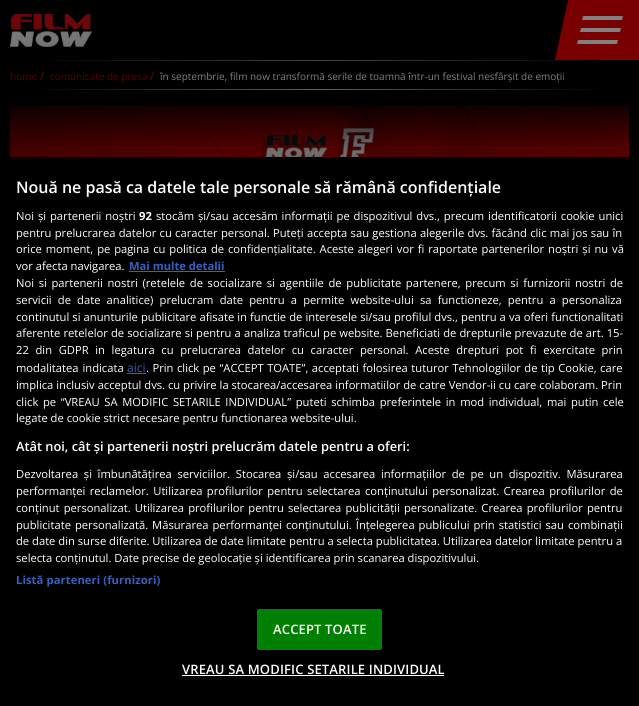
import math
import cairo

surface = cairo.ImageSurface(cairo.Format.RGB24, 639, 706)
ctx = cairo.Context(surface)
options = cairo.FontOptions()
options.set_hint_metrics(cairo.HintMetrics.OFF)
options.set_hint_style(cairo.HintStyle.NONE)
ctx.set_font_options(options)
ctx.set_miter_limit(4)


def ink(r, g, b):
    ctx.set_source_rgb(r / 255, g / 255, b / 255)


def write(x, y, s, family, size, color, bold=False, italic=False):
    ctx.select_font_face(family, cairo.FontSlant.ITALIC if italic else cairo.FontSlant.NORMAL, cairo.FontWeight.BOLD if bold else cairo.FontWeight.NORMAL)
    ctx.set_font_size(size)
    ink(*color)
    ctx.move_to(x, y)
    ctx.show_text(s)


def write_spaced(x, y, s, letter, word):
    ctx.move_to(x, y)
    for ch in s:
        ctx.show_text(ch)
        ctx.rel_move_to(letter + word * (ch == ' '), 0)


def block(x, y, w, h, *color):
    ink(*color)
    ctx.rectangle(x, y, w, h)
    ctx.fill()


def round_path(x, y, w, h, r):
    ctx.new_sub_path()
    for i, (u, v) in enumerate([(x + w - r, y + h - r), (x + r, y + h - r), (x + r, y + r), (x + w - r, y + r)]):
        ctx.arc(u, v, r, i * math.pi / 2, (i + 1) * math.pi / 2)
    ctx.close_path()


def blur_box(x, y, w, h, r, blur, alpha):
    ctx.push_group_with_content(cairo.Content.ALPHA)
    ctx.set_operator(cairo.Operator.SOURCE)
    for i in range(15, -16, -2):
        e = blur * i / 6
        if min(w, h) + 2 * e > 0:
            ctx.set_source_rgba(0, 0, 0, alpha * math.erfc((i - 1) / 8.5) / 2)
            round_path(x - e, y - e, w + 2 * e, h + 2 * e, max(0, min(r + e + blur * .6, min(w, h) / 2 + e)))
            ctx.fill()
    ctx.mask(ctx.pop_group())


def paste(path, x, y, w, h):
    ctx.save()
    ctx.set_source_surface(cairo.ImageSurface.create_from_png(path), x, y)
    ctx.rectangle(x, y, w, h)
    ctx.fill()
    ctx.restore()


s1 = dict(family="Open Sans", size=10, color=(90, 0, 0))
s2 = dict(family="Open Sans", size=12, color=(120, 0, 0))
s3 = dict(family="Open Sans", size=10, color=(128, 128, 128))
s4 = dict(family="Open Sans SemiBold", size=16, color=(255, 255, 255))
s5 = dict(family="Open Sans", size=11.2, color=(255, 255, 255), bold=True)
s6 = dict(family="Open Sans", size=11.2, color=(255, 255, 255))
s7 = dict(family="Open Sans", size=11.2, color=(56, 96, 190), bold=True)
s8 = dict(family="Open Sans", size=12, color=(56, 96, 190))
s9 = dict(family="Open Sans SemiBold", size=12.8, color=(255, 255, 255))

ink(0, 0, 0)
ctx.paint()
gradient = cairo.LinearGradient(0, 90, 639, 89)
gradient.add_color_stop_rgba(0.05, 0, 0, 0, 1)
gradient.add_color_stop_rgba(0.5, 0.38, 0.38, 0.38, 1)
gradient.add_color_stop_rgba(0.95, 0, 0, 0, 1)
ctx.set_source(gradient)
ctx.rectangle(39, 89, 561, 1)
ctx.fill()
gradient = cairo.LinearGradient(0, 61, 639, 60)
gradient.add_color_stop_rgba(0.05, 0, 0, 0, 1)
gradient.add_color_stop_rgba(0.5, 0.38, 0.38, 0.38, 1)
gradient.add_color_stop_rgba(0.95, 0, 0, 0, 1)
ctx.set_source(gradient)
ctx.rectangle(39, 60, 561, 1)
ctx.fill()
ctx.save()
ctx.rectangle(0, 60, 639, 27)
ctx.clip()
ink(0, 0, 0)
blur_box(0, 5, 639, 60, 0, 12.5, 0.5)
ctx.restore()
paste("pic1.png", 10, 14, 82, 33)
ink(120, 0, 0)
ctx.new_path()
ctx.move_to(568, 0)
ctx.line_to(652, 0)
ctx.line_to(639, 60)
ctx.line_to(555, 60)
ctx.close_path()
ctx.fill()
ink(128, 128, 128)
ctx.new_path()
ctx.move_to(581, 28)
ctx.line_to(621, 28)
ctx.line_to(620, 32)
ctx.line_to(580, 32)
ctx.close_path()
ctx.move_to(583, 16)
ctx.line_to(623, 16)
ctx.line_to(622, 20)
ctx.line_to(582, 20)
ctx.close_path()
ctx.move_to(578, 40)
ctx.line_to(618, 40)
ctx.line_to(617, 44)
ctx.line_to(577, 44)
ctx.close_path()
ctx.fill()
write(10, 80, "home", **s1)
write(40, 80, "/", **s2)
write(50, 80, "comunicate de presa", **s1)
write(150, 80, "/", **s2)
write(160, 80, "în septembrie, film now transformă serile de toamnă într-un festival nesfârșit de emoții", **s3)
paste("pic2.png", 10, 105, 619, 52)
ink(0, 0, 0)
blur_box(0, 157, 639, 549, 0, 9, 0.2)
write(16, 193, "Nouă ne pasă ca datele tale personale să rămână confidențiale", **s4)
ctx.select_font_face("Open Sans")
ctx.set_font_size(11.2)
write_spaced(16, 220, "Noi și partenerii noștri", 0, 1)
write(139, 220, "92", **s5)
ctx.select_font_face("Open Sans")
write_spaced(156, 220, "stocăm și/sau accesăm informații pe dispozitivul dvs., precum identificatorii cookie unici", 0, 1)
write_spaced(16, 237, "pentru prelucrarea datelor cu caracter personal. Puteți accepta sau gestiona alegerile dvs. făcând clic mai jos sau în", 0, 0.4)
write_spaced(16, 253, "orice moment, pe pagina cu politica de confidențialitate. Aceste alegeri vor fi raportate partenerilor noștri și nu vă", 0, 1)
write(16, 270, "vor afecta navigarea.", **s6)
write(129, 270, "Mai multe detalii", **s7)
block(129, 271, 96, 1, 56, 96, 190)
ctx.select_font_face("Open Sans")
ink(255, 255, 255)
write_spaced(16, 287, "Noi si partenerii nostri (retelele de socializare si agentiile de publicitate partenere, precum si furnizorii nostri de", 0, 1.75)
write_spaced(16, 304, "servicii de date analitice) prelucram date pentru a permite website-ului sa functioneze, pentru a personaliza", 0, 3.25)
write_spaced(16, 321, "continutul si anunturile publicitare afisate in functie de interesele si/sau profilul dvs., pentru a va oferi functionalitati", 0, 0.2)
write_spaced(16, 337, "aferente retelelor de socializare si pentru a analiza traficul pe website. Beneficiati de drepturile prevazute de art. 15-", 0, 0.2)
write_spaced(16, 354, "22 din GDPR in legatura cu prelucrarea datelor cu caracter personal. Aceste drepturi pot fi exercitate prin", 0, 3.75)
write_spaced(16, 372, "modalitatea indicata", 0, 1)
write(127, 372, "aici", **s8)
block(127, 373, 19, 1, 56, 96, 190)
ctx.set_font_size(11.2)
ink(255, 255, 255)
write_spaced(146, 372, ". Prin click pe “ACCEPT TOATE”, acceptati folosirea tuturor Tehnologiilor de tip Cookie, care", 0, 0.6)
write(16, 389, "implica inclusiv acceptul dvs. cu privire la stocarea/accesarea informatiilor de catre Vendor-ii cu care colaboram. Prin", **s6)
write_spaced(16, 406, "click pe “VREAU SA MODIFIC SETARILE INDIVIDUAL” puteti schimba preferintele in mod individual, mai putin cele", 0, 1.75)
write(16, 422, "legate de cookie strict necesare pentru functionarea website-ului.", **s6)
write(16, 451, "Atât noi, cât și partenerii noștri prelucrăm datele pentru a oferi:", **s9)
ctx.select_font_face("Open Sans")
ctx.set_font_size(11.2)
write_spaced(16, 478, "Dezvoltarea și îmbunătățirea serviciilor. Stocarea și/sau accesarea informațiilor de pe un dispozitiv. Măsurarea", 0, 2.75)
write_spaced(16, 495, "performanței reclamelor. Utilizarea profilurilor pentru selectarea conținutului personalizat. Crearea profilurilor de", 0, 1.5)
write_spaced(16, 512, "conținut personalizat. Utilizarea profilurilor pentru selectarea publicității personalizate. Crearea profilurilor pentru", 0, 1.25)
write_spaced(16, 529, "publicitate personalizată. Măsurarea performanței conținutului. Înțelegerea publicului prin statistici sau combinații", 0, 1.1)
write(16, 545, "de date din surse diferite. Utilizarea de date limitate pentru a selecta publicitatea. Utilizarea datelor limitate pentru a", **s6)
write(16, 562, "selecta conținutul. Date precise de geolocație și identificarea prin scanarea dispozitivului.", **s6)
ctx.select_font_face("Open Sans", cairo.FontSlant.NORMAL, cairo.FontWeight.BOLD)
ink(56, 96, 190)
write_spaced(16, 584, "Listă parteneri (furnizori)", 0.1, 0)
ink(0, 128, 0)
round_path(257.5, 609.5, 124, 40, 1.5)
ctx.fill_preserve()
ctx.set_line_width(1)
ctx.stroke()
ctx.select_font_face("Open Sans SemiBold")
ctx.set_font_size(13)
ink(255, 255, 255)
write_spaced(273, 634, "ACCEPT TOATE", 0.15, 0)
write_spaced(182, 674, "VREAU SA MODIFIC SETARILE INDIVIDUAL", 0.15, 0)
block(182, 675, 262, 1, 255, 255, 255)
surface.write_to_png("screenshot.png")
